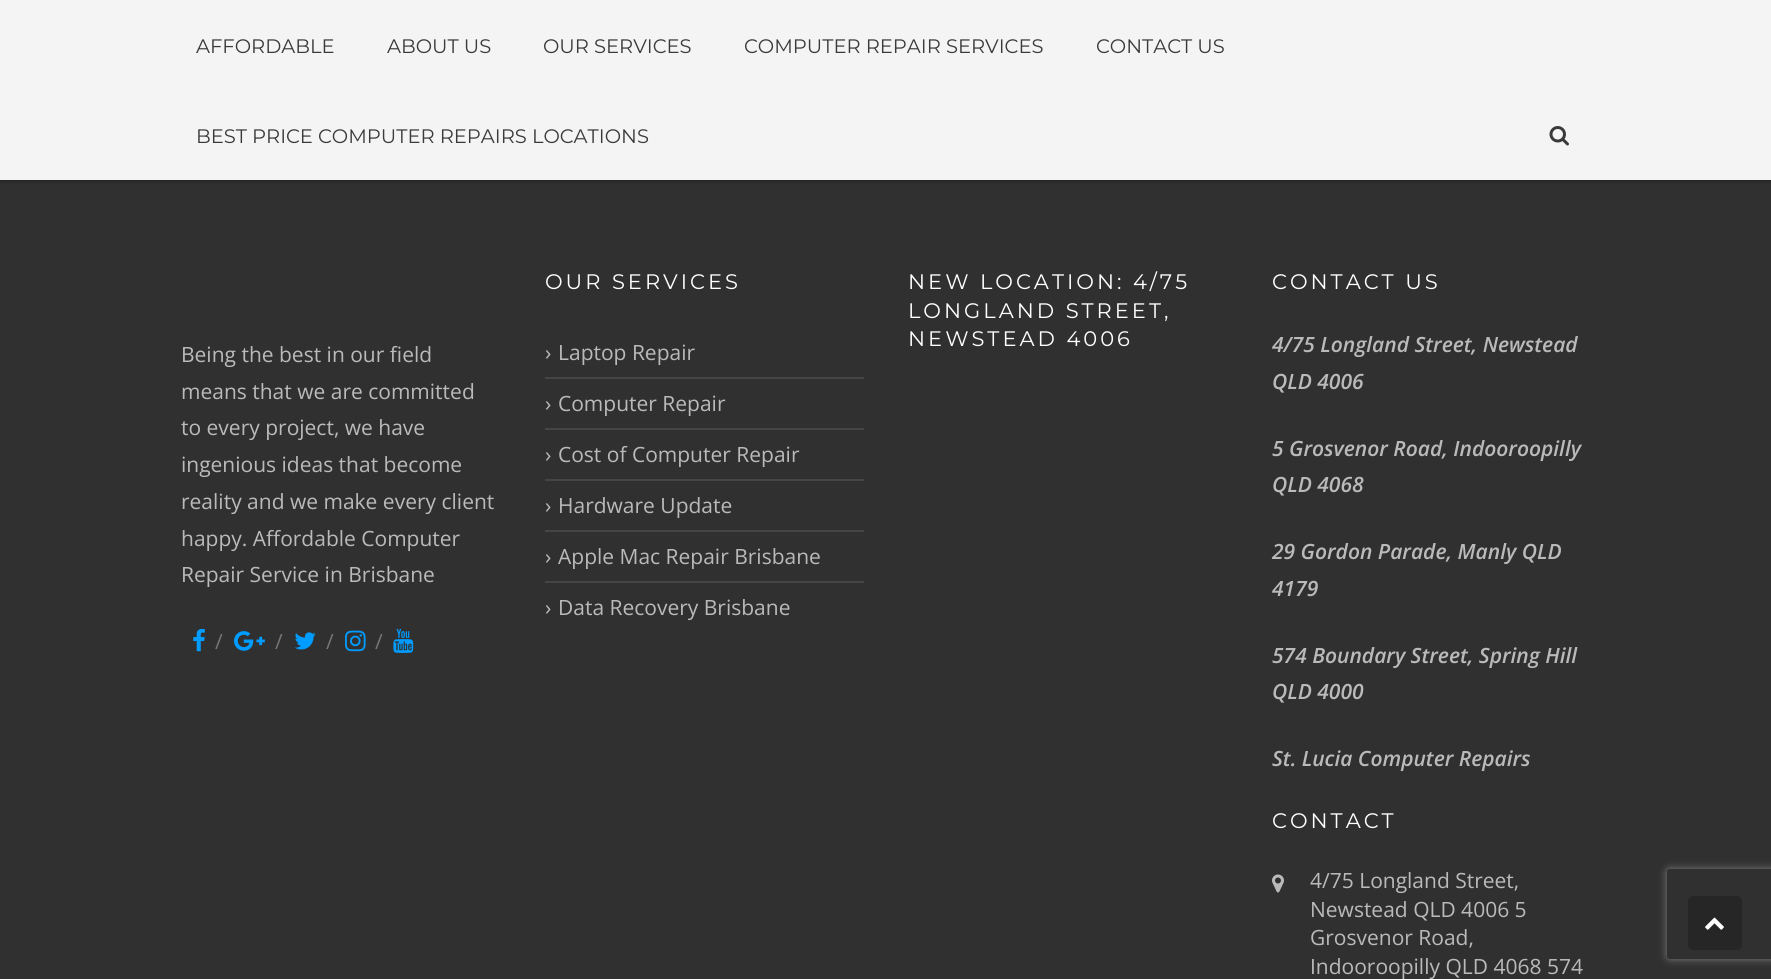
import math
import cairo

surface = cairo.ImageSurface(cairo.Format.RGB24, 1771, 979)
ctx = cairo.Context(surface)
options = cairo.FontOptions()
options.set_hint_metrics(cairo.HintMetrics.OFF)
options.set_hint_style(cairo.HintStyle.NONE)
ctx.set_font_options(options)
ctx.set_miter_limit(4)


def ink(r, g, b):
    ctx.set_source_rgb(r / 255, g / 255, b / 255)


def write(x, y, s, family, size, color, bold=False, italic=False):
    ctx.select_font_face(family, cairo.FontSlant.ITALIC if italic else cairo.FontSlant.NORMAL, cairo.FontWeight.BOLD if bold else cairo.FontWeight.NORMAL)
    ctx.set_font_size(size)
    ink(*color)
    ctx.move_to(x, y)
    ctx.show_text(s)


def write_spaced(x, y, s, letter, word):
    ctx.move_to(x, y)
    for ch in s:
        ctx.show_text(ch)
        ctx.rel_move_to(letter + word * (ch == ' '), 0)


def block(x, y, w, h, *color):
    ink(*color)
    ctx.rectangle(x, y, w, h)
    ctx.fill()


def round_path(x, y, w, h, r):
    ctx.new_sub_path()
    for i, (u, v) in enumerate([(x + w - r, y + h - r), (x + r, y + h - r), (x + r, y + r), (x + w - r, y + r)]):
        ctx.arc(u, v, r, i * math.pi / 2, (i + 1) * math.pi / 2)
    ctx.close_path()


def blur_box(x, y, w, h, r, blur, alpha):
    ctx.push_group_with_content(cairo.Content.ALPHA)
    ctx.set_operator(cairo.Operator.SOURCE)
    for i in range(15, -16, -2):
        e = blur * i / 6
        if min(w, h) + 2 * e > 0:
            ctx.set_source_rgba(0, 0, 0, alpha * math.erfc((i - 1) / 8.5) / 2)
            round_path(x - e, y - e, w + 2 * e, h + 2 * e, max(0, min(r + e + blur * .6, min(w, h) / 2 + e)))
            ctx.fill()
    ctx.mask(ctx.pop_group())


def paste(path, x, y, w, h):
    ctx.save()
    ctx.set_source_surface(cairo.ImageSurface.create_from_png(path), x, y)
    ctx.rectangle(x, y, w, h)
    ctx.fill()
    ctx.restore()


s1 = dict(family="Montserrat", size=19.5, color=(58, 58, 58))
s2 = dict(family="Open Sans", size=21, color=(186, 186, 186))
s3 = dict(family="Open Sans", size=21, color=(117, 117, 117))
s4 = dict(family="Open Sans SemiBold", size=21, color=(186, 186, 186), italic=True)

ink(48, 48, 48)
ctx.paint()
ink(0, 0, 0)
blur_box(0, 2, 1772, 180, 0, 2, 0.24)
block(0, 0, 1771, 180, 244, 244, 244)
write(196, 53, "AFFORDABLE", **s1)
write(387, 53, "ABOUT US", **s1)
write(543, 53, "OUR SERVICES", **s1)
write(744, 53, "COMPUTER REPAIR SERVICES", **s1)
write(1096, 53, "CONTACT US", **s1)
write(196, 143, "BEST PRICE COMPUTER REPAIRS LOCATIONS", **s1)
paste("pic1.png", 1549, 126, 20, 20)
write(181, 362, "Being the best in our field", **s2)
write(181, 399, "means that we are committed", **s2)
write(181, 435, "to every project, we have", **s2)
write(181, 472, "ingenious ideas that become", **s2)
write(181, 509, "reality and we make every client", **s2)
write(181, 546, "happy. Affordable Computer", **s2)
write(181, 582, "Repair Service in Brisbane", **s2)
paste("pic2.png", 193, 628, 12, 24)
write(215, 649, "/", **s3)
paste("pic3.png", 234, 631, 31, 20)
write(275, 649, "/", **s3)
paste("pic4.png", 294, 632, 22, 18)
write(326, 649, "/", **s3)
paste("pic5.png", 345, 630, 21, 22)
write(375, 649, "/", **s3)
paste("pic6.png", 393, 628, 21, 25)
ctx.select_font_face("Montserrat")
ink(255, 255, 255)
write_spaced(545, 289, "OUR SERVICES", 3, 0)
block(545, 377, 319, 2, 69, 69, 69)
write(545, 360, "›", **s2)
write(558, 360, "Laptop Repair", **s2)
block(545, 428, 319, 2, 69, 69, 69)
write(545, 411, "›", **s2)
write(558, 411, "Computer Repair", **s2)
block(545, 479, 319, 2, 69, 69, 69)
write(545, 462, "›", **s2)
write(558, 462, "Cost of Computer Repair", **s2)
block(545, 530, 319, 2, 69, 69, 69)
write(545, 513, "›", **s2)
write(558, 513, "Hardware Update", **s2)
block(545, 581, 319, 2, 69, 69, 69)
write(545, 564, "›", **s2)
write(558, 564, "Apple Mac Repair Brisbane", **s2)
write(545, 615, "›", **s2)
write(558, 615, "Data Recovery Brisbane", **s2)
ctx.select_font_face("Montserrat")
ink(255, 255, 255)
write_spaced(908, 289, "NEW LOCATION: 4/75", 3, 0)
write_spaced(908, 318, "LONGLAND STREET,", 3, 0)
write_spaced(908, 346, "NEWSTEAD 4006", 3, 0)
write_spaced(1272, 289, "CONTACT US", 3, 0)
write(1272, 352, "4/75 Longland Street, Newstead", **s4)
write(1272, 389, "QLD 4006", **s4)
write(1272, 456, "5 Grosvenor Road, Indooroopilly", **s4)
write(1272, 492, "QLD 4068", **s4)
write(1272, 559, "29 Gordon Parade, Manly QLD", **s4)
write(1272, 596, "4179", **s4)
write(1272, 663, "574 Boundary Street, Spring Hill", **s4)
write(1272, 699, "QLD 4000", **s4)
write(1272, 766, "St. Lucia Computer Repairs", **s4)
ctx.select_font_face("Montserrat")
ink(255, 255, 255)
write_spaced(1272, 828, "CONTACT", 3, 0)
paste("pic7.png", 1272, 874, 12, 19)
write(1310, 888, "4/75 Longland Street,", **s2)
write(1310, 917, "Newstead QLD 4006 5", **s2)
write(1310, 945, "Grosvenor Road,", **s2)
write(1310, 974, "Indooroopilly QLD 4068 574", **s2)
ctx.save()
ctx.set_fill_rule(cairo.FillRule.EVEN_ODD)
ctx.new_path()
ctx.move_to(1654, 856)
ctx.line_to(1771, 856)
ctx.line_to(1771, 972)
ctx.line_to(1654, 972)
ctx.close_path()
ctx.move_to(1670, 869)
ctx.line_to(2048, 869)
ctx.curve_to(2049.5, 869, 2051, 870.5, 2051, 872)
ctx.line_to(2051, 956)
ctx.curve_to(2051, 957.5, 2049.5, 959, 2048, 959)
ctx.line_to(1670, 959)
ctx.curve_to(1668.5, 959, 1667, 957.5, 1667, 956)
ctx.line_to(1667, 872)
ctx.curve_to(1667, 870.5, 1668.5, 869, 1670, 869)
ctx.close_path()
ctx.clip()
ink(128, 128, 128)
blur_box(1667, 869, 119, 90, 3, 4, 1)
ctx.restore()
ink(38, 38, 38)
round_path(1688, 896, 54, 54, 5)
ctx.fill()
paste("pic8.png", 1705, 917, 19, 13)
surface.write_to_png("screenshot.png")
